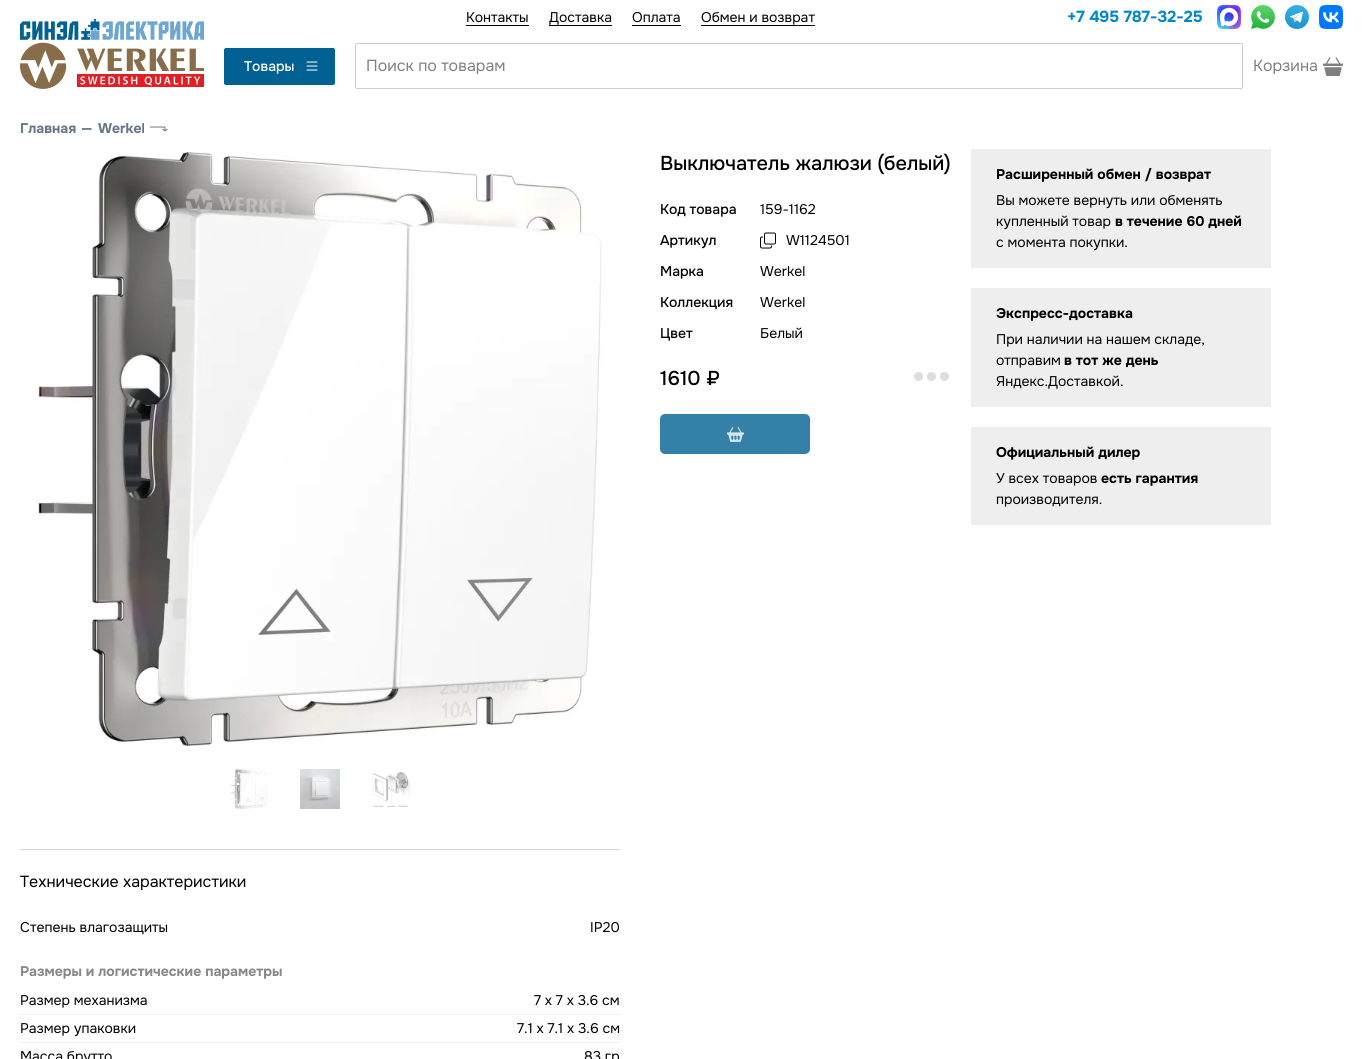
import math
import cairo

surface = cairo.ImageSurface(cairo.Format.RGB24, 1363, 1059)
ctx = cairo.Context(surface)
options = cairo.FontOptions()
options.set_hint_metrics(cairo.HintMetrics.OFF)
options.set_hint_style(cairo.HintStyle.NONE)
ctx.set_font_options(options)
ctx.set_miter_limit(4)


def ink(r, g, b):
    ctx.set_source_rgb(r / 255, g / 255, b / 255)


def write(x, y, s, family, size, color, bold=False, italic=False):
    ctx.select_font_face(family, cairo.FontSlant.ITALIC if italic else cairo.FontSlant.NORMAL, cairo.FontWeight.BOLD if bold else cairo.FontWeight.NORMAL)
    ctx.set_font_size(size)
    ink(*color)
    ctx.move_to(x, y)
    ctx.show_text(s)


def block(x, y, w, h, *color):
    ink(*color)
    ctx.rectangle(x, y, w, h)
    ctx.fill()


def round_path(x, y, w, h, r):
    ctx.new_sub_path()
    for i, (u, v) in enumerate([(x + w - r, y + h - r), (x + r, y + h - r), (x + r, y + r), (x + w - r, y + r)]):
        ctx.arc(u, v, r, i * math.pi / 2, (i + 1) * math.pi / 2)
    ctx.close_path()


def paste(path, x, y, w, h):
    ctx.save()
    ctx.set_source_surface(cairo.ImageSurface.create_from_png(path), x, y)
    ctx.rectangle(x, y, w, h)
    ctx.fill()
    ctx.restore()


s1 = dict(family="Onest", size=14, color=(0, 0, 0))
s2 = dict(family="Onest", size=16, color=(0, 136, 204), bold=True)
s3 = dict(family="Onest Medium", size=14, color=(255, 255, 255))
s4 = dict(family="Onest", size=16, color=(128, 128, 128))
s5 = dict(family="Onest", size=14, color=(102, 118, 133), bold=True)
s6 = dict(family="Onest Medium", size=20, color=(0, 0, 0))
s7 = dict(family="Onest Medium", size=14, color=(0, 0, 0))
s8 = dict(family="Onest", size=14, color=(0, 0, 0), bold=True)
s9 = dict(family="Onest", size=16, color=(0, 0, 0))
s10 = dict(family="Onest", size=14, color=(136, 136, 136), bold=True)

ink(255, 255, 255)
ctx.paint()
paste("pic1.png", 20, 19, 184, 70)
write(466, 22, "Контакты", **s1)
block(466, 25, 63, 1, 0, 0, 0)
write(549, 22, "Доставка", **s1)
block(549, 25, 63, 1, 0, 0, 0)
write(632, 22, "Оплата", **s1)
block(632, 25, 49, 1, 0, 0, 0)
write(701, 22, "Обмен и возврат", **s1)
block(701, 25, 114, 1, 0, 0, 0)
write(1067, 22, "+7 495 787-32-25", **s2)
paste("pic2.png", 1217, 5, 24, 24)
paste("pic3.png", 1251, 5, 24, 24)
paste("pic4.png", 1285, 5, 24, 24)
paste("pic5.png", 1319, 5, 24, 24)
ink(0, 97, 146)
round_path(224, 48, 111, 37, 2)
ctx.fill()
write(244, 71, "Товары", **s3)
paste("pic6.png", 306, 61, 12, 10)
round_path(355.5, 43.5, 887, 45, 1.5)
ink(204, 204, 204)
ctx.set_line_width(1)
ctx.stroke()
write(366, 71, "Поиск по товарам", **s4)
write(1253, 71, "Корзина", **s4)
paste("pic7.png", 1323, 57, 20, 19)
write(20, 133, "Главная", **s5)
write(81, 133, "—", **s5)
write(98, 133, "Werkel", **s5)
ctx.new_path()
ctx.move_to(150, 127)
ctx.line_to(165, 127)
ctx.line_to(165, 131)
ctx.move_to(165, 131)
ctx.line_to(167.5, 129)
ctx.move_to(165, 131)
ctx.line_to(162.5, 129)
ink(120, 120, 120)
ctx.stroke()
write(660, 170, "Выключатель жалюзи (белый)", **s6)
write(660, 214, "Код товара", **s7)
write(760, 214, "159-1162", **s1)
write(660, 245, "Артикул", **s7)
paste("pic8.png", 760, 232, 16, 17)
write(786, 245, "W1124501", **s1)
write(660, 276, "Марка", **s7)
write(760, 276, "Werkel", **s1)
write(660, 307, "Коллекция", **s7)
write(760, 307, "Werkel", **s1)
write(660, 338, "Цвет", **s7)
write(760, 338, "Белый", **s1)
write(660, 385, "1610 ₽", **s6)
ink(221, 221, 221)
ctx.new_path()
ctx.arc(918.5, 376.5, 4.5, 0, 2 * math.pi)
ctx.fill()
ctx.arc(931.5, 376.5, 4.5, 0, 2 * math.pi)
ctx.fill()
ctx.arc(944.5, 376.5, 4.5, 0, 2 * math.pi)
ctx.fill()
ink(51, 129, 168)
round_path(660, 414, 150, 40, 5)
ctx.fill()
paste("pic9.png", 727, 427, 17, 15)
block(971, 149, 300, 119, 238, 238, 238)
write(996, 179, "Расширенный обмен / возврат", **s8)
write(996, 205, "Вы можете вернуть или обменять", **s1)
write(996, 226, "купленный товар", **s1)
write(1115, 226, "в течение 60 дней", **s8)
write(996, 247, "с момента покупки.", **s1)
block(971, 288, 300, 119, 238, 238, 238)
write(996, 318, "Экспресс-доставка", **s8)
write(996, 344, "При наличии на нашем складе,", **s1)
write(996, 365, "отправим", **s1)
write(1064, 365, "в тот же день", **s8)
write(996, 386, "Яндекс.Доставкой.", **s1)
block(971, 427, 300, 98, 238, 238, 238)
write(996, 457, "Официальный дилер", **s8)
write(996, 483, "У всех товаров", **s1)
write(1101, 483, "есть гарантия", **s8)
write(996, 504, "производителя.", **s1)
paste("pic10.png", 37, 152, 565, 594)
paste("pic11.png", 230, 769, 38, 40)
paste("pic12.png", 300, 769, 40, 40)
paste("pic13.png", 372, 772, 38, 35)
block(20, 849, 600, 1, 209, 213, 220)
write(20, 887, "Технические характеристики", **s9)
write(20, 932, "Степень влагозащиты", **s1)
write(590, 932, "IP20", **s1)
write(20, 976, "Размеры и логистические параметры", **s10)
block(20, 1014, 600, 1, 238, 238, 238)
write(20, 1005, "Размер механизма", **s1)
write(534, 1005, "7 x 7 x 3.6 см", **s1)
block(20, 1042, 600, 1, 238, 238, 238)
write(20, 1033, "Размер упаковки", **s1)
write(517, 1033, "7.1 x 7.1 x 3.6 см", **s1)
write(20, 1061, "Масса брутто", **s1)
write(584, 1061, "83 гр", **s1)
surface.write_to_png("screenshot.png")
